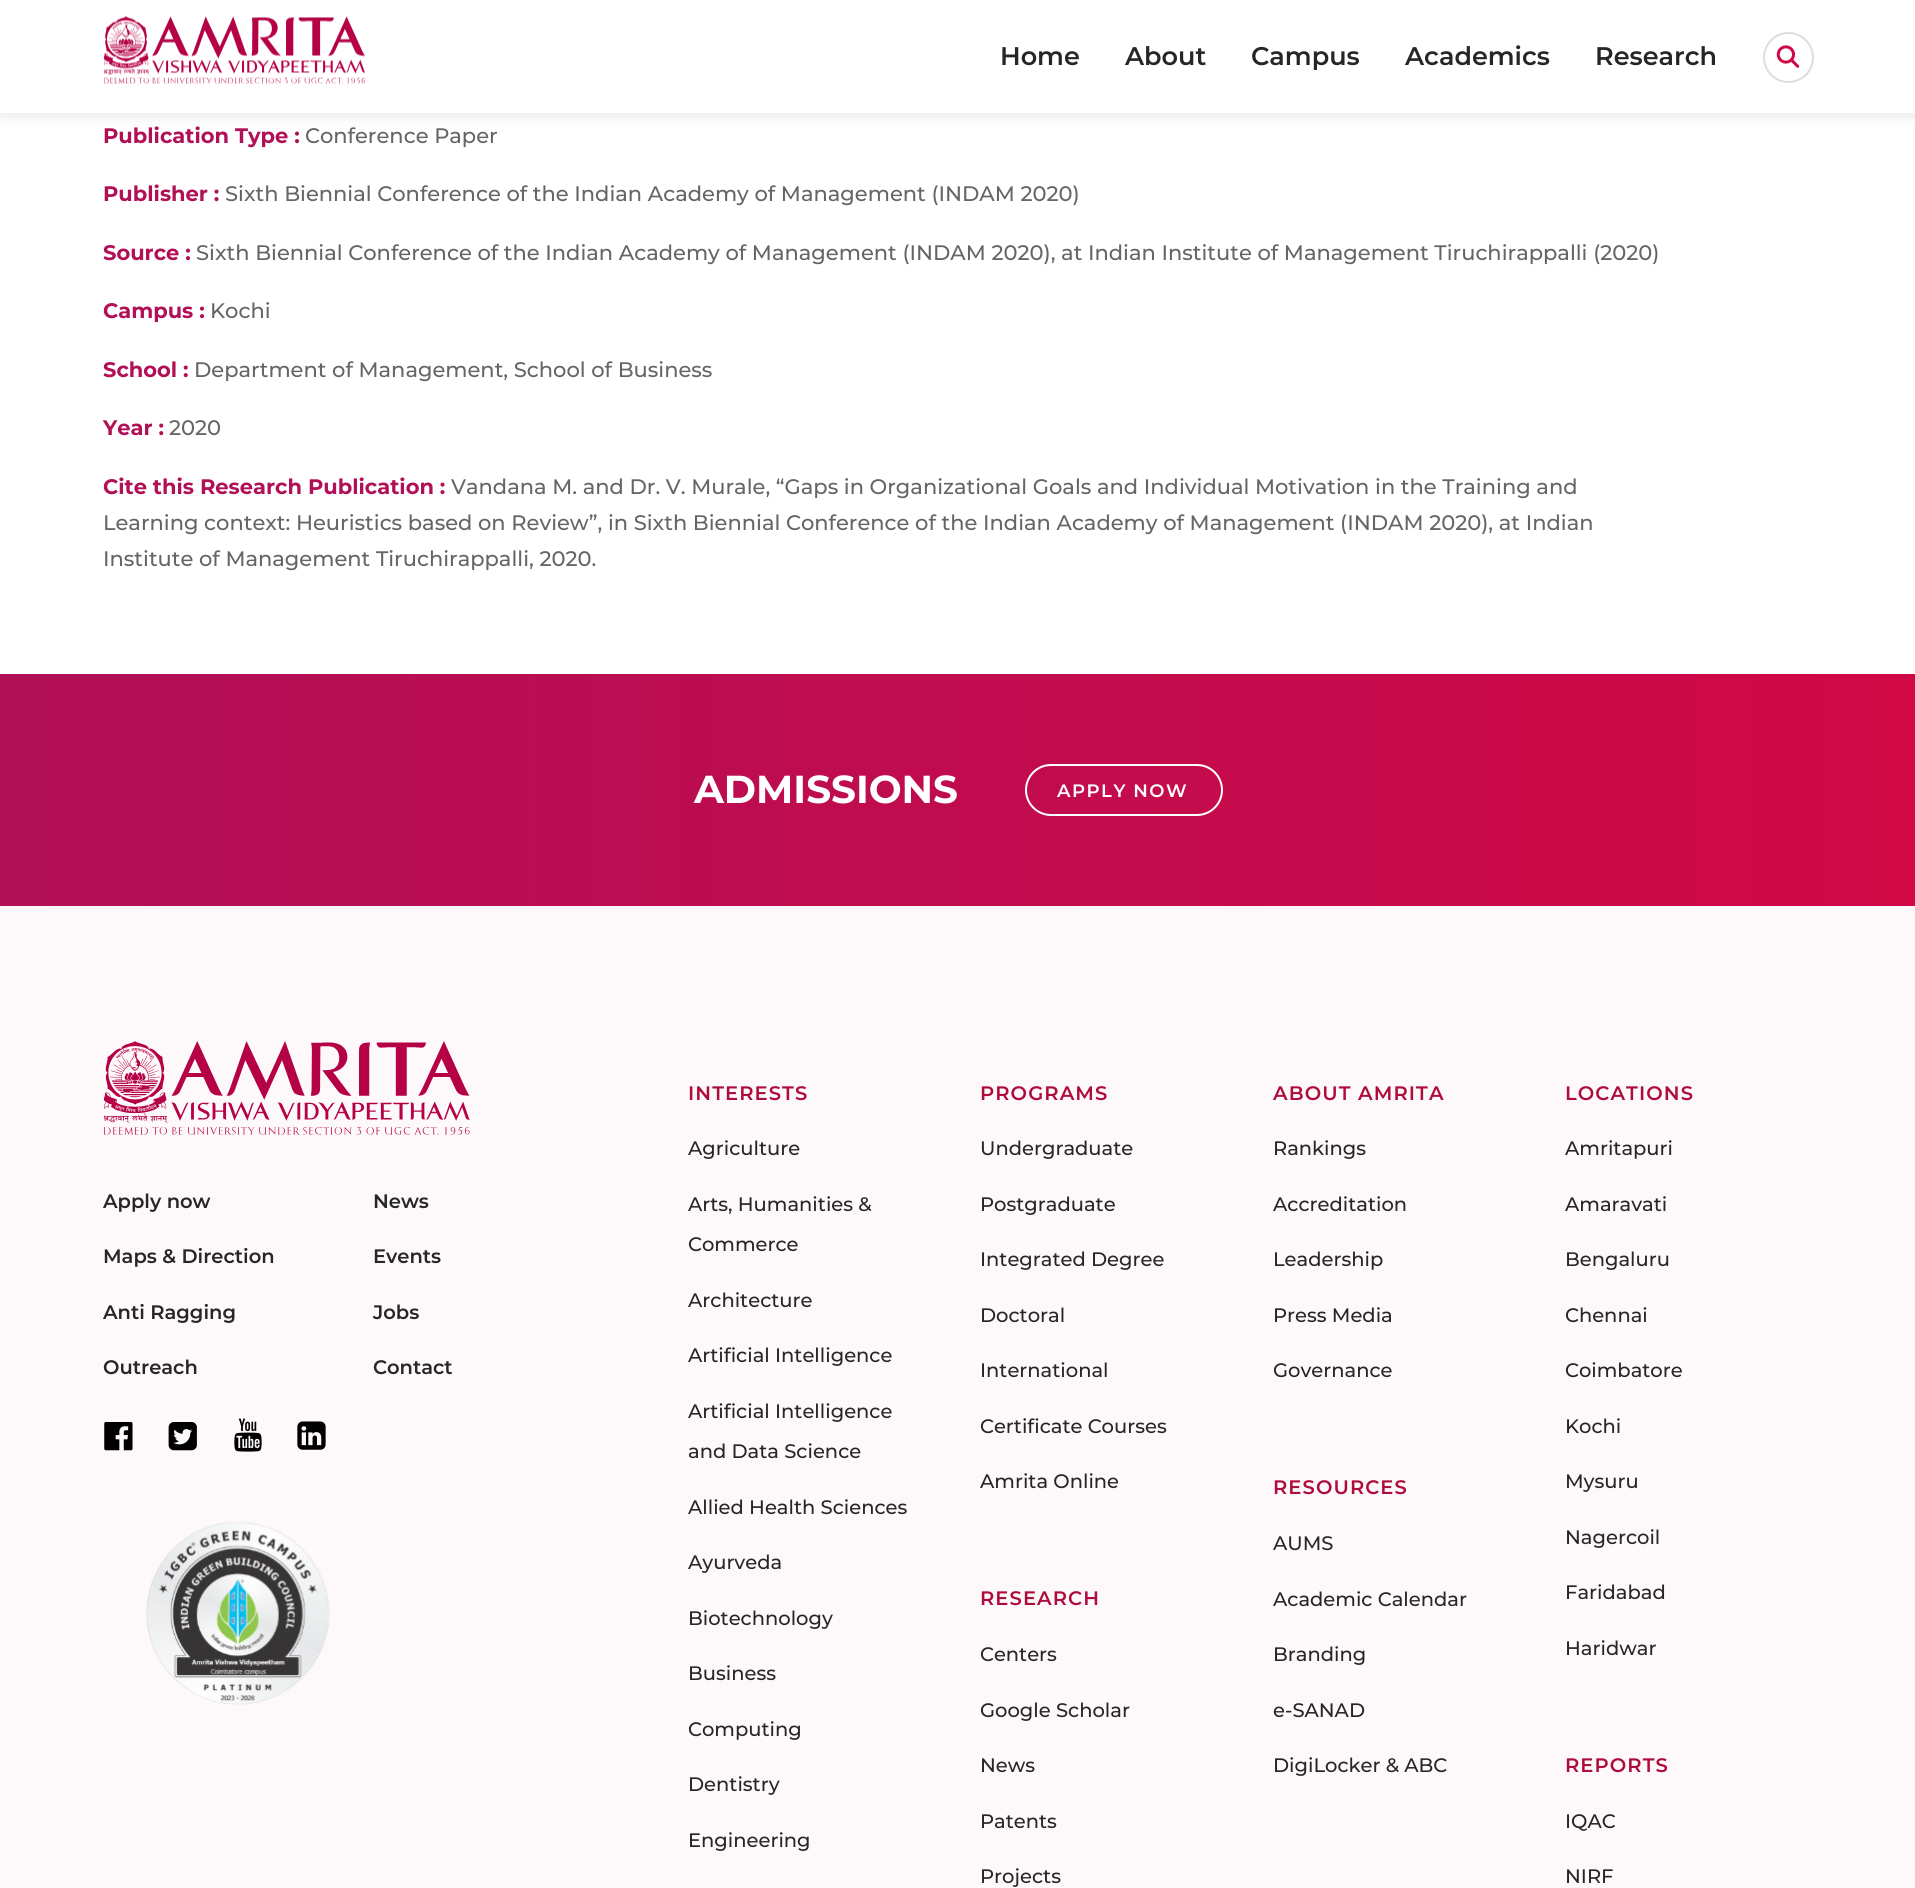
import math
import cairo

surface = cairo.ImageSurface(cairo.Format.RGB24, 1915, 1888)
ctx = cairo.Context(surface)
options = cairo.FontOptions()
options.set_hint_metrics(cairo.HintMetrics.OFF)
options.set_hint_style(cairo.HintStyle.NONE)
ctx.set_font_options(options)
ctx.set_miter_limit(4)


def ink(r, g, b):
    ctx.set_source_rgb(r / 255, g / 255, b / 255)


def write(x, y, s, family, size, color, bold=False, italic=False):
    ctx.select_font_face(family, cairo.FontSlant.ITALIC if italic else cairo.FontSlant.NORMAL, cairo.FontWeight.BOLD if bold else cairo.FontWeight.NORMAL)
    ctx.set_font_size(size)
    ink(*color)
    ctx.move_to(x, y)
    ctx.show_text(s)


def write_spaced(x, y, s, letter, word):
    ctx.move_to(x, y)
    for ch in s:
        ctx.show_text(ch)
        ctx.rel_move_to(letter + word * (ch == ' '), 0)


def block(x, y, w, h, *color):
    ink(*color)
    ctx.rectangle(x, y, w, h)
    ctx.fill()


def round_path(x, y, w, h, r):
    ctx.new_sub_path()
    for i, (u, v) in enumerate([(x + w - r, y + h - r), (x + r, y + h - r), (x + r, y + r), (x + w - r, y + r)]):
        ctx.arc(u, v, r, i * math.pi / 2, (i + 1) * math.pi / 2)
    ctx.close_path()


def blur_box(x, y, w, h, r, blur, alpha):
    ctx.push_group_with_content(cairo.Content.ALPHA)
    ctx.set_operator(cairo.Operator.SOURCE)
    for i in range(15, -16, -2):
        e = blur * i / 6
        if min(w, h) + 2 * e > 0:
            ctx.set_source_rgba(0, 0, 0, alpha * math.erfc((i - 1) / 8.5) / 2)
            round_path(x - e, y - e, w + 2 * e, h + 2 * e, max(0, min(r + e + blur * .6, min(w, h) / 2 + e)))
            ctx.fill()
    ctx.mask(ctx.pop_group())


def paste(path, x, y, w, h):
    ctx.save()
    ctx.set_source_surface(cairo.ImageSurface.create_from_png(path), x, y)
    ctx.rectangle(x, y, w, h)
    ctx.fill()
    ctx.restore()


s1 = dict(family="Montserrat SemiBold", size=25.5, color=(38, 38, 38))
s2 = dict(family="Montserrat", size=21, color=(177, 15, 86), bold=True)
s3 = dict(family="Montserrat Medium", size=21, color=(101, 101, 101))
s4 = dict(family="Montserrat", size=39, color=(255, 255, 255), bold=True)
s5 = dict(family="Montserrat SemiBold", size=19.5, color=(38, 38, 38))
s6 = dict(family="Montserrat Medium", size=19.5, color=(38, 38, 38))

ink(255, 255, 255)
ctx.paint()
ink(0, 0, 0)
blur_box(0, 0, 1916, 113, 0, 7.5, 0.13)
block(0, 0, 1915, 113, 255, 255, 255)
paste("pic1.png", 104, 16, 261, 68)
write(1000, 65, "Home", **s1)
write(1125, 65, "About", **s1)
write(1251, 65, "Campus", **s1)
write(1405, 65, "Academics", **s1)
write(1595, 65, "Research", **s1)
paste("pic2.png", 1776, 45, 24, 23)
ctx.arc(1788.5, 57.5, 24.5, 0, 2 * math.pi)
ink(221, 221, 221)
ctx.stroke()
write(103, 143, "Publication Type :", **s2)
write(305, 143, "Conference Paper", **s3)
write(103, 201, "Publisher :", **s2)
write(225, 201, "Sixth Biennial Conference of the Indian Academy of Management (INDAM 2020)", **s3)
write(103, 260, "Source :", **s2)
write(196, 260, "Sixth Biennial Conference of the Indian Academy of Management (INDAM 2020), at Indian Institute of Management Tiruchirappalli (2020)", **s3)
write(103, 318, "Campus :", **s2)
write(210, 318, "Kochi", **s3)
write(103, 377, "School :", **s2)
write(194, 377, "Department of Management, School of Business", **s3)
write(103, 435, "Year :", **s2)
write(169, 435, "2020", **s3)
write(103, 494, "Cite this Research Publication :", **s2)
write(451, 494, "Vandana M. and Dr. V. Murale, “Gaps in Organizational Goals and Individual Motivation in the Training and", **s3)
write(103, 530, "Learning context: Heuristics based on Review”, in Sixth Biennial Conference of the Indian Academy of Management (INDAM 2020), at Indian", **s3)
write(103, 566, "Institute of Management Tiruchirappalli, 2020.", **s3)
gradient = cairo.LinearGradient(0, 790, 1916, 790)
gradient.add_color_stop_rgba(0, 0.694, 0.059, 0.337, 1)
gradient.add_color_stop_rgba(1, 0.816, 0.031, 0.275, 1)
ctx.set_source(gradient)
ctx.rectangle(0, 674, 1915, 232)
ctx.fill()
write(694, 803, "ADMISSIONS", **s4)
round_path(1026, 765, 196, 50, 25)
ctx.stroke()
ctx.select_font_face("Montserrat SemiBold")
ctx.set_font_size(18)
write_spaced(1057, 797, "APPLY NOW", 1.5, 0)
block(0, 906, 1915, 982, 253, 248, 249)
paste("pic3.png", 104, 1041, 366, 94)
write(103, 1208, "Apply now", **s5)
write(103, 1263, "Maps & Direction", **s5)
write(103, 1319, "Anti Ragging", **s5)
write(103, 1374, "Outreach", **s5)
write(373, 1208, "News", **s5)
write(373, 1263, "Events", **s5)
write(373, 1319, "Jobs", **s5)
write(373, 1374, "Contact", **s5)
paste("pic4.png", 104, 1422, 29, 29)
paste("pic5.png", 168, 1422, 29, 29)
paste("pic6.png", 234, 1418, 28, 34)
paste("pic7.png", 297, 1421, 29, 29)
paste("pic8.png", 146, 1521, 184, 184)
ink(175, 12, 62)
write_spaced(688, 1100, "INTERESTS", 1.1, 0)
write(688, 1155, "Agriculture", **s6)
write(688, 1211, "Arts, Humanities &", **s6)
write(688, 1251, "Commerce", **s6)
write(688, 1307, "Architecture", **s6)
write(688, 1362, "Artificial Intelligence", **s6)
write(688, 1418, "Artificial Intelligence", **s6)
write(688, 1458, "and Data Science", **s6)
write(688, 1514, "Allied Health Sciences", **s6)
write(688, 1569, "Ayurveda", **s6)
write(688, 1625, "Biotechnology", **s6)
write(688, 1680, "Business", **s6)
write(688, 1736, "Computing", **s6)
write(688, 1791, "Dentistry", **s6)
write(688, 1847, "Engineering", **s6)
ctx.select_font_face("Montserrat SemiBold")
ink(175, 12, 62)
write_spaced(980, 1100, "PROGRAMS", 1.1, 0)
write(980, 1155, "Undergraduate", **s6)
write(980, 1211, "Postgraduate", **s6)
write(980, 1266, "Integrated Degree", **s6)
write(980, 1322, "Doctoral", **s6)
write(980, 1377, "International", **s6)
write(980, 1433, "Certificate Courses", **s6)
write(980, 1488, "Amrita Online", **s6)
ctx.select_font_face("Montserrat SemiBold")
ink(175, 12, 62)
write_spaced(980, 1605, "RESEARCH", 1.1, 0)
write(980, 1661, "Centers", **s6)
write(980, 1717, "Google Scholar", **s6)
write(980, 1772, "News", **s6)
write(980, 1828, "Patents", **s6)
write(980, 1883, "Projects", **s6)
ctx.select_font_face("Montserrat SemiBold")
ink(175, 12, 62)
write_spaced(1273, 1100, "ABOUT AMRITA", 1.1, 0)
write(1273, 1155, "Rankings", **s6)
write(1273, 1211, "Accreditation", **s6)
write(1273, 1266, "Leadership", **s6)
write(1273, 1322, "Press Media", **s6)
write(1273, 1377, "Governance", **s6)
ctx.select_font_face("Montserrat SemiBold")
ink(175, 12, 62)
write_spaced(1273, 1494, "RESOURCES", 1.1, 0)
write(1273, 1550, "AUMS", **s6)
write(1273, 1606, "Academic Calendar", **s6)
write(1273, 1661, "Branding", **s6)
write(1273, 1717, "e-SANAD", **s6)
write(1273, 1772, "DigiLocker & ABC", **s6)
ctx.select_font_face("Montserrat SemiBold")
ink(175, 12, 62)
write_spaced(1565, 1100, "LOCATIONS", 1.1, 0)
write(1565, 1155, "Amritapuri", **s6)
write(1565, 1211, "Amaravati", **s6)
write(1565, 1266, "Bengaluru", **s6)
write(1565, 1322, "Chennai", **s6)
write(1565, 1377, "Coimbatore", **s6)
write(1565, 1433, "Kochi", **s6)
write(1565, 1488, "Mysuru", **s6)
write(1565, 1544, "Nagercoil", **s6)
write(1565, 1599, "Faridabad", **s6)
write(1565, 1655, "Haridwar", **s6)
ctx.select_font_face("Montserrat SemiBold")
ink(175, 12, 62)
write_spaced(1565, 1772, "REPORTS", 1.1, 0)
write(1565, 1828, "IQAC", **s6)
write(1565, 1883, "NIRF", **s6)
surface.write_to_png("screenshot.png")
